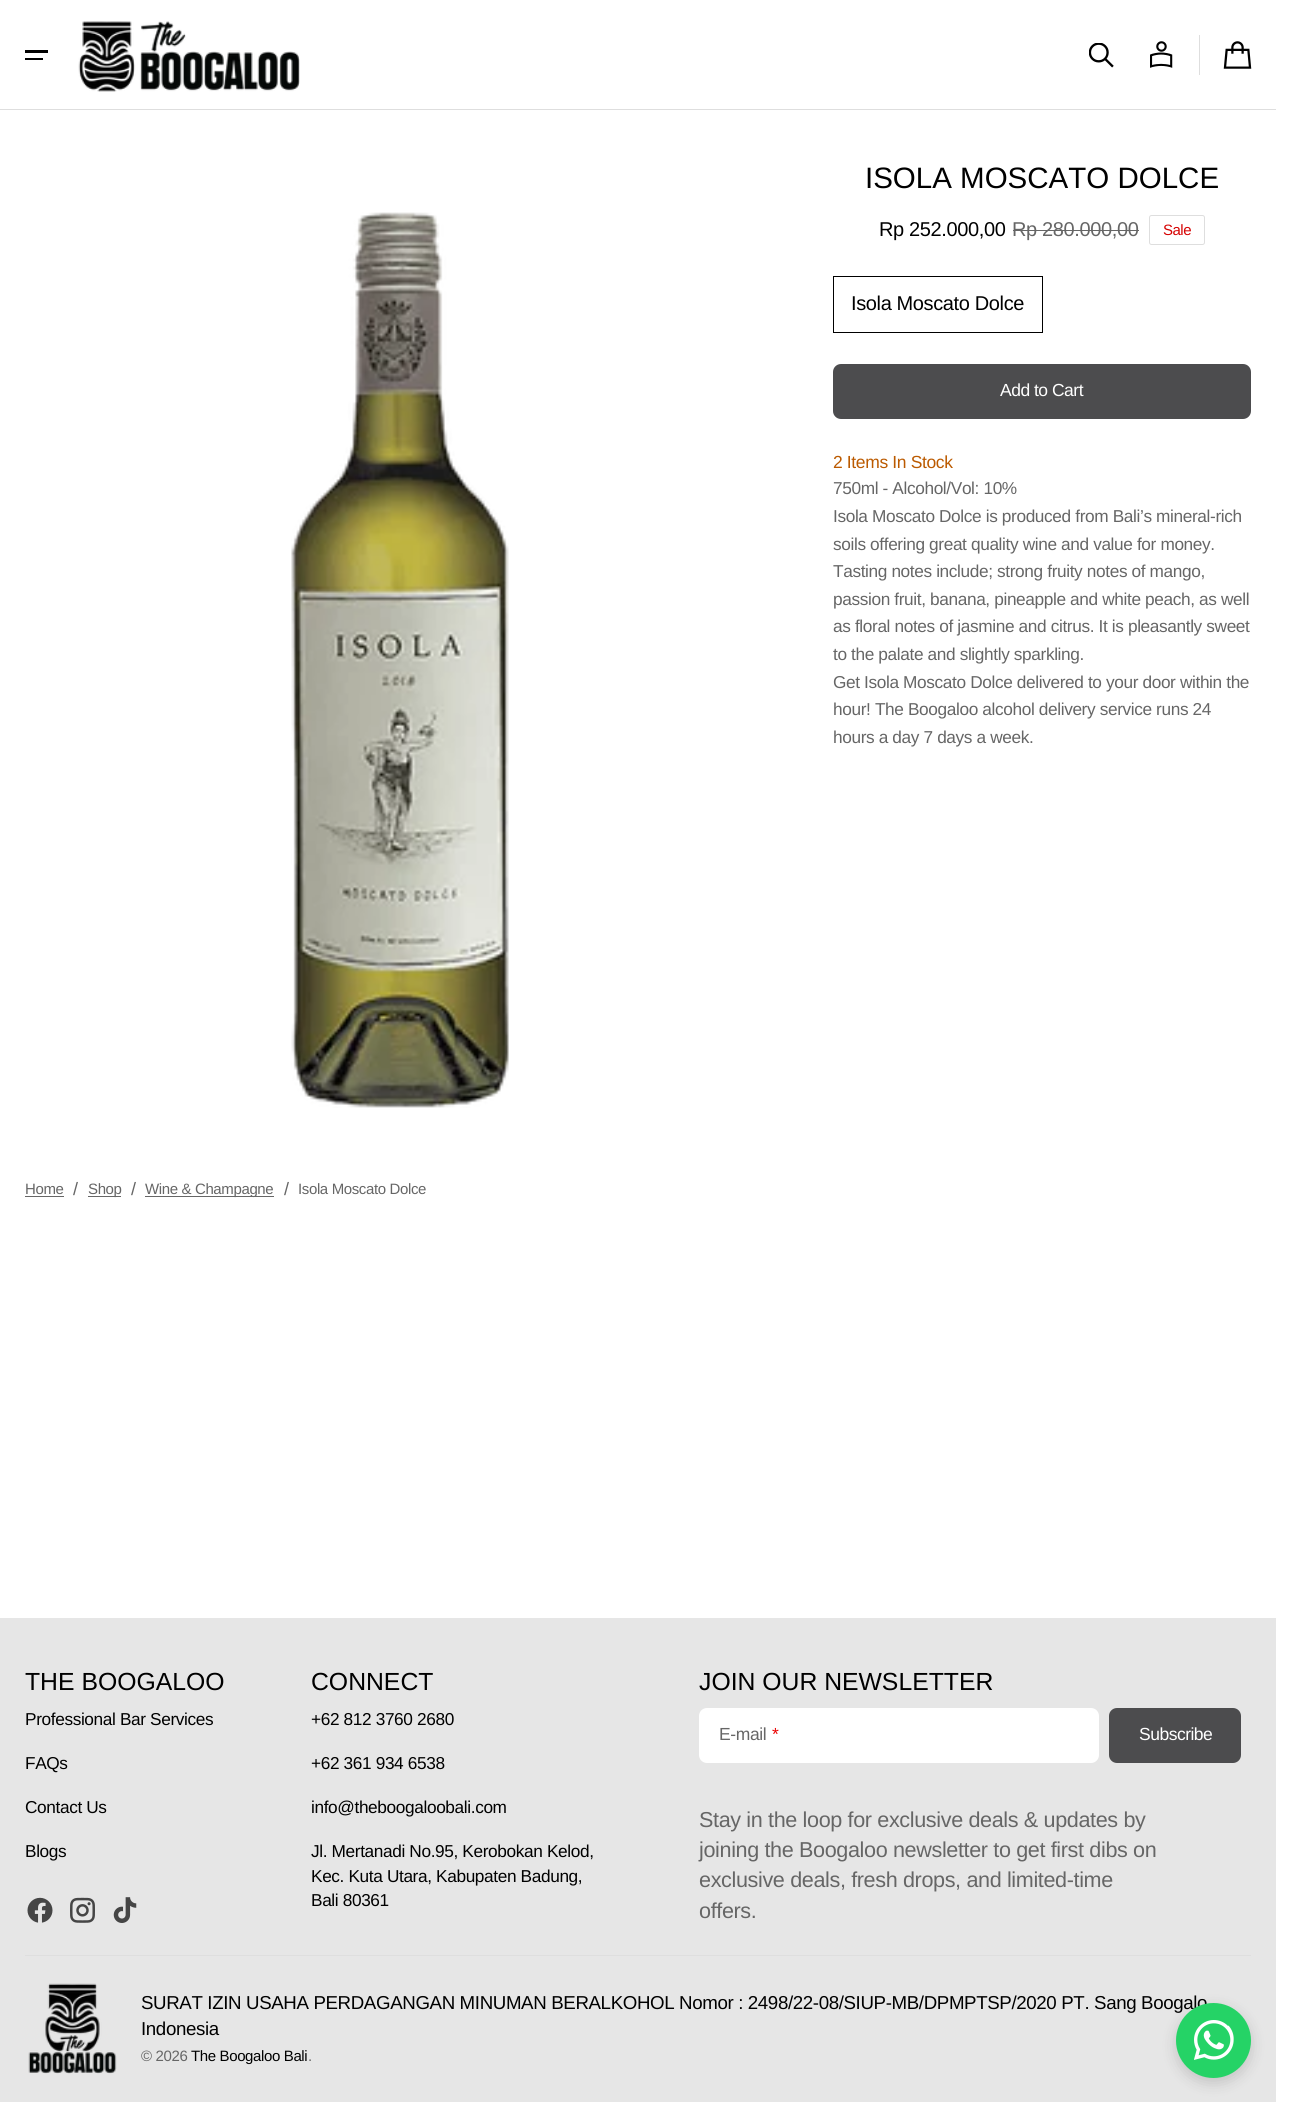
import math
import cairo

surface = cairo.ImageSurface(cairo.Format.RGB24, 1294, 2102)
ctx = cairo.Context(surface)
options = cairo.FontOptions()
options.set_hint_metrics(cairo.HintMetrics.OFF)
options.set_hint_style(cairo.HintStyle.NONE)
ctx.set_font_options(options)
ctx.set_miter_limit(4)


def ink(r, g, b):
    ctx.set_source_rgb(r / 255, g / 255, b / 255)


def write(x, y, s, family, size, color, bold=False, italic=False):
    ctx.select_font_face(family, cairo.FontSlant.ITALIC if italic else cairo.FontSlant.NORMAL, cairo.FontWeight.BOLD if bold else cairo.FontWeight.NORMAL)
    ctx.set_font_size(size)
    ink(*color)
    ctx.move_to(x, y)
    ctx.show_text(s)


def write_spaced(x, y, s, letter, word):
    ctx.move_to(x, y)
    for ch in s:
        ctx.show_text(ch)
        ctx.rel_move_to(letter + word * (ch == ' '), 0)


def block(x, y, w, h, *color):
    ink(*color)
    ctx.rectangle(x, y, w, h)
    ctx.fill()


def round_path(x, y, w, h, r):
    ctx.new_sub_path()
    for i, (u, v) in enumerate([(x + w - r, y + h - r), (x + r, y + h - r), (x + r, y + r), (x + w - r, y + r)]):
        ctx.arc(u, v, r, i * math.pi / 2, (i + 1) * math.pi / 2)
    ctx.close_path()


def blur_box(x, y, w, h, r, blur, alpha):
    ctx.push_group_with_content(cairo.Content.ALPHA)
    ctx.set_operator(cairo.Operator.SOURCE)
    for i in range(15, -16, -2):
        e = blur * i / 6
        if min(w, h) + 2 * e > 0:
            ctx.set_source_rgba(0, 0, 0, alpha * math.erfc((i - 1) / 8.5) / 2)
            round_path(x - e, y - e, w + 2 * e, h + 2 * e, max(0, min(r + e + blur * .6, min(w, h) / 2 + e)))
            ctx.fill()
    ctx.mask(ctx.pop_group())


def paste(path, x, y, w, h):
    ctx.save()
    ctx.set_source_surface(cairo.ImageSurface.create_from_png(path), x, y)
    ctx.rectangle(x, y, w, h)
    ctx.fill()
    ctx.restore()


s1 = dict(family="Liberation Sans", size=29.5, color=(0, 0, 0))
s2 = dict(family="Liberation Sans", size=18, color=(102, 102, 102))
s3 = dict(family="Liberation Sans", size=24.75, color=(0, 0, 0))

ink(255, 255, 255)
ctx.paint()
block(25, 50, 23, 3, 0, 0, 0)
block(25, 58, 18, 2, 0, 0, 0)
paste("pic1.png", 78, 21, 222, 71)
paste("pic2.png", 1089, 43, 25, 25)
paste("pic3.png", 1150, 41, 23, 27)
block(1199, 35, 1, 40, 222, 222, 222)
paste("pic4.png", 1223, 41, 29, 28)
block(0, 109, 1276, 1, 222, 222, 222)
write(865, 188, "ISOLA MOSCATO DOLCE", **s1)
ctx.set_font_size(20)
write_spaced(879, 236, "Rp 252.000,00", -0.37, 0)
ink(102, 102, 102)
write_spaced(1012, 236, "Rp 280.000,00", -0.37, 0)
block(1013, 230, 126, 1, 102, 102, 102)
round_path(1149.5, 215.5, 55, 29, 2)
ink(222, 222, 222)
ctx.set_line_width(1)
ctx.stroke()
ctx.set_font_size(15)
ink(214, 2, 2)
write_spaced(1163, 235, "Sale", -0.5, 0)
ctx.rectangle(833.5, 276.5, 209, 56)
ink(0, 0, 0)
ctx.stroke()
ctx.set_font_size(20)
write_spaced(851, 310, "Isola Moscato Dolce", -0.37, 0)
ink(76, 76, 78)
round_path(833, 364, 418, 55, 8)
ctx.fill()
ctx.set_font_size(17.5)
ink(255, 255, 255)
write_spaced(1000, 396, "Add to Cart", -0.5, 0)
ink(187, 90, 0)
write_spaced(833, 468, "2 Items In Stock", -0.37, 0)
ctx.set_font_size(17.25)
ink(102, 102, 102)
write_spaced(833, 494, "750ml - Alcohol/Vol: 10%", -0.37, 0)
write_spaced(833, 522, "Isola Moscato Dolce is produced from Bali’s mineral-rich", -0.37, 0)
write_spaced(833, 550, "soils offering great quality wine and value for money.", -0.37, 0)
write_spaced(833, 577, "Tasting notes include; strong fruity notes of mango,", -0.37, 0)
write_spaced(833, 605, "passion fruit, banana, pineapple and white peach, as well", -0.37, 0)
write_spaced(833, 632, "as floral notes of jasmine and citrus. It is pleasantly sweet", -0.37, 0)
write_spaced(833, 660, "to the palate and slightly sparkling.", -0.37, 0)
write_spaced(833, 688, "Get Isola Moscato Dolce delivered to your door within the", -0.37, 0)
write_spaced(833, 715, "hour! The Boogaloo alcohol delivery service runs 24", -0.37, 0)
write_spaced(833, 743, "hours a day 7 days a week.", -0.37, 0)
paste("pic5.png", 291, 212, 218, 896)
ctx.set_font_size(15)
write_spaced(25, 1194, "Home", -0.37, 0)
block(25, 1196, 39, 1, 102, 102, 102)
write(73, 1195, "/", **s2)
block(88, 1196, 33, 1, 102, 102, 102)
ctx.set_font_size(15)
write_spaced(88, 1194, "Shop", -0.37, 0)
write(131, 1195, "/", **s2)
block(145, 1196, 129, 1, 102, 102, 102)
ctx.set_font_size(15)
write_spaced(145, 1194, "Wine & Champagne", -0.37, 0)
write(284, 1195, "/", **s2)
ctx.set_font_size(15)
write_spaced(298, 1194, "Isola Moscato Dolce", -0.37, 0)
block(0, 1618, 1276, 484, 230, 230, 230)
write(25, 1690, "THE BOOGALOO", **s3)
ctx.set_font_size(17.25)
write_spaced(25, 1725, "Professional Bar Services", -0.37, 0)
write_spaced(25, 1769, "FAQs", -0.37, 0)
write_spaced(25, 1813, "Contact Us", -0.37, 0)
write_spaced(25, 1857, "Blogs", -0.37, 0)
paste("pic6.png", 27, 1897, 26, 26)
paste("pic7.png", 70, 1897, 25, 26)
paste("pic8.png", 113, 1897, 24, 26)
write(311, 1690, "CONNECT", **s3)
ctx.set_font_size(17.25)
write_spaced(311, 1725, "+62 812 3760 2680", -0.37, 0)
write_spaced(311, 1769, "+62 361 934 6538", -0.37, 0)
write_spaced(311, 1813, "info@theboogaloobali.com", -0.37, 0)
write_spaced(311, 1857, "Jl. Mertanadi No.95, Kerobokan Kelod,", -0.37, 0)
write_spaced(311, 1882, "Kec. Kuta Utara, Kabupaten Badung,", -0.37, 0)
write_spaced(311, 1906, "Bali 80361", -0.37, 0)
write(699, 1690, "JOIN OUR NEWSLETTER", **s3)
ink(255, 255, 255)
round_path(699, 1708, 400, 55, 8)
ctx.fill()
ctx.set_font_size(17.5)
ink(102, 102, 102)
write_spaced(719, 1740, "E-mail", -0.37, 0)
ink(234, 2, 2)
write_spaced(772, 1740, "*", -0.37, 0)
ink(76, 76, 78)
round_path(1109, 1708, 132, 55, 8)
ctx.fill()
ink(255, 255, 255)
write_spaced(1139, 1740, "Subscribe", -0.5, 0)
ctx.set_font_size(21.6)
ink(102, 102, 102)
write_spaced(699, 1827, "Stay in the loop for exclusive deals & updates by", -0.37, 0)
write_spaced(699, 1857, "joining the Boogaloo newsletter to get first dibs on", -0.37, 0)
write_spaced(699, 1887, "exclusive deals, fresh drops, and limited-time", -0.37, 0)
write_spaced(699, 1918, "offers.", -0.37, 0)
block(25, 1955, 1226, 1, 222, 222, 222)
paste("pic9.png", 28, 1983, 89, 91)
ctx.set_font_size(18.7)
ink(0, 0, 0)
write_spaced(141, 2009, "SURAT IZIN USAHA PERDAGANGAN MINUMAN BERALKOHOL Nomor : 2498/22-08/SIUP-MB/DPMPTSP/2020 PT. Sang Boogalo", -0.37, 0)
write_spaced(141, 2035, "Indonesia", -0.37, 0)
ctx.set_font_size(15)
ink(102, 102, 102)
write_spaced(141, 2061, "© 2026", -0.37, 0)
ink(0, 0, 0)
write_spaced(191, 2061, "The Boogaloo Bali", -0.37, 0)
ink(102, 102, 102)
write_spaced(308, 2061, ".", -0.37, 0)
ink(0, 0, 0)
blur_box(1176, 2008, 75, 75, 37.5, 7.5, 0.15)
ink(37, 211, 102)
ctx.arc(1213.5, 2040.5, 37.5, 0, 2 * math.pi)
ctx.fill()
paste("pic10.png", 1194, 2020, 40, 40)
surface.write_to_png("screenshot.png")
